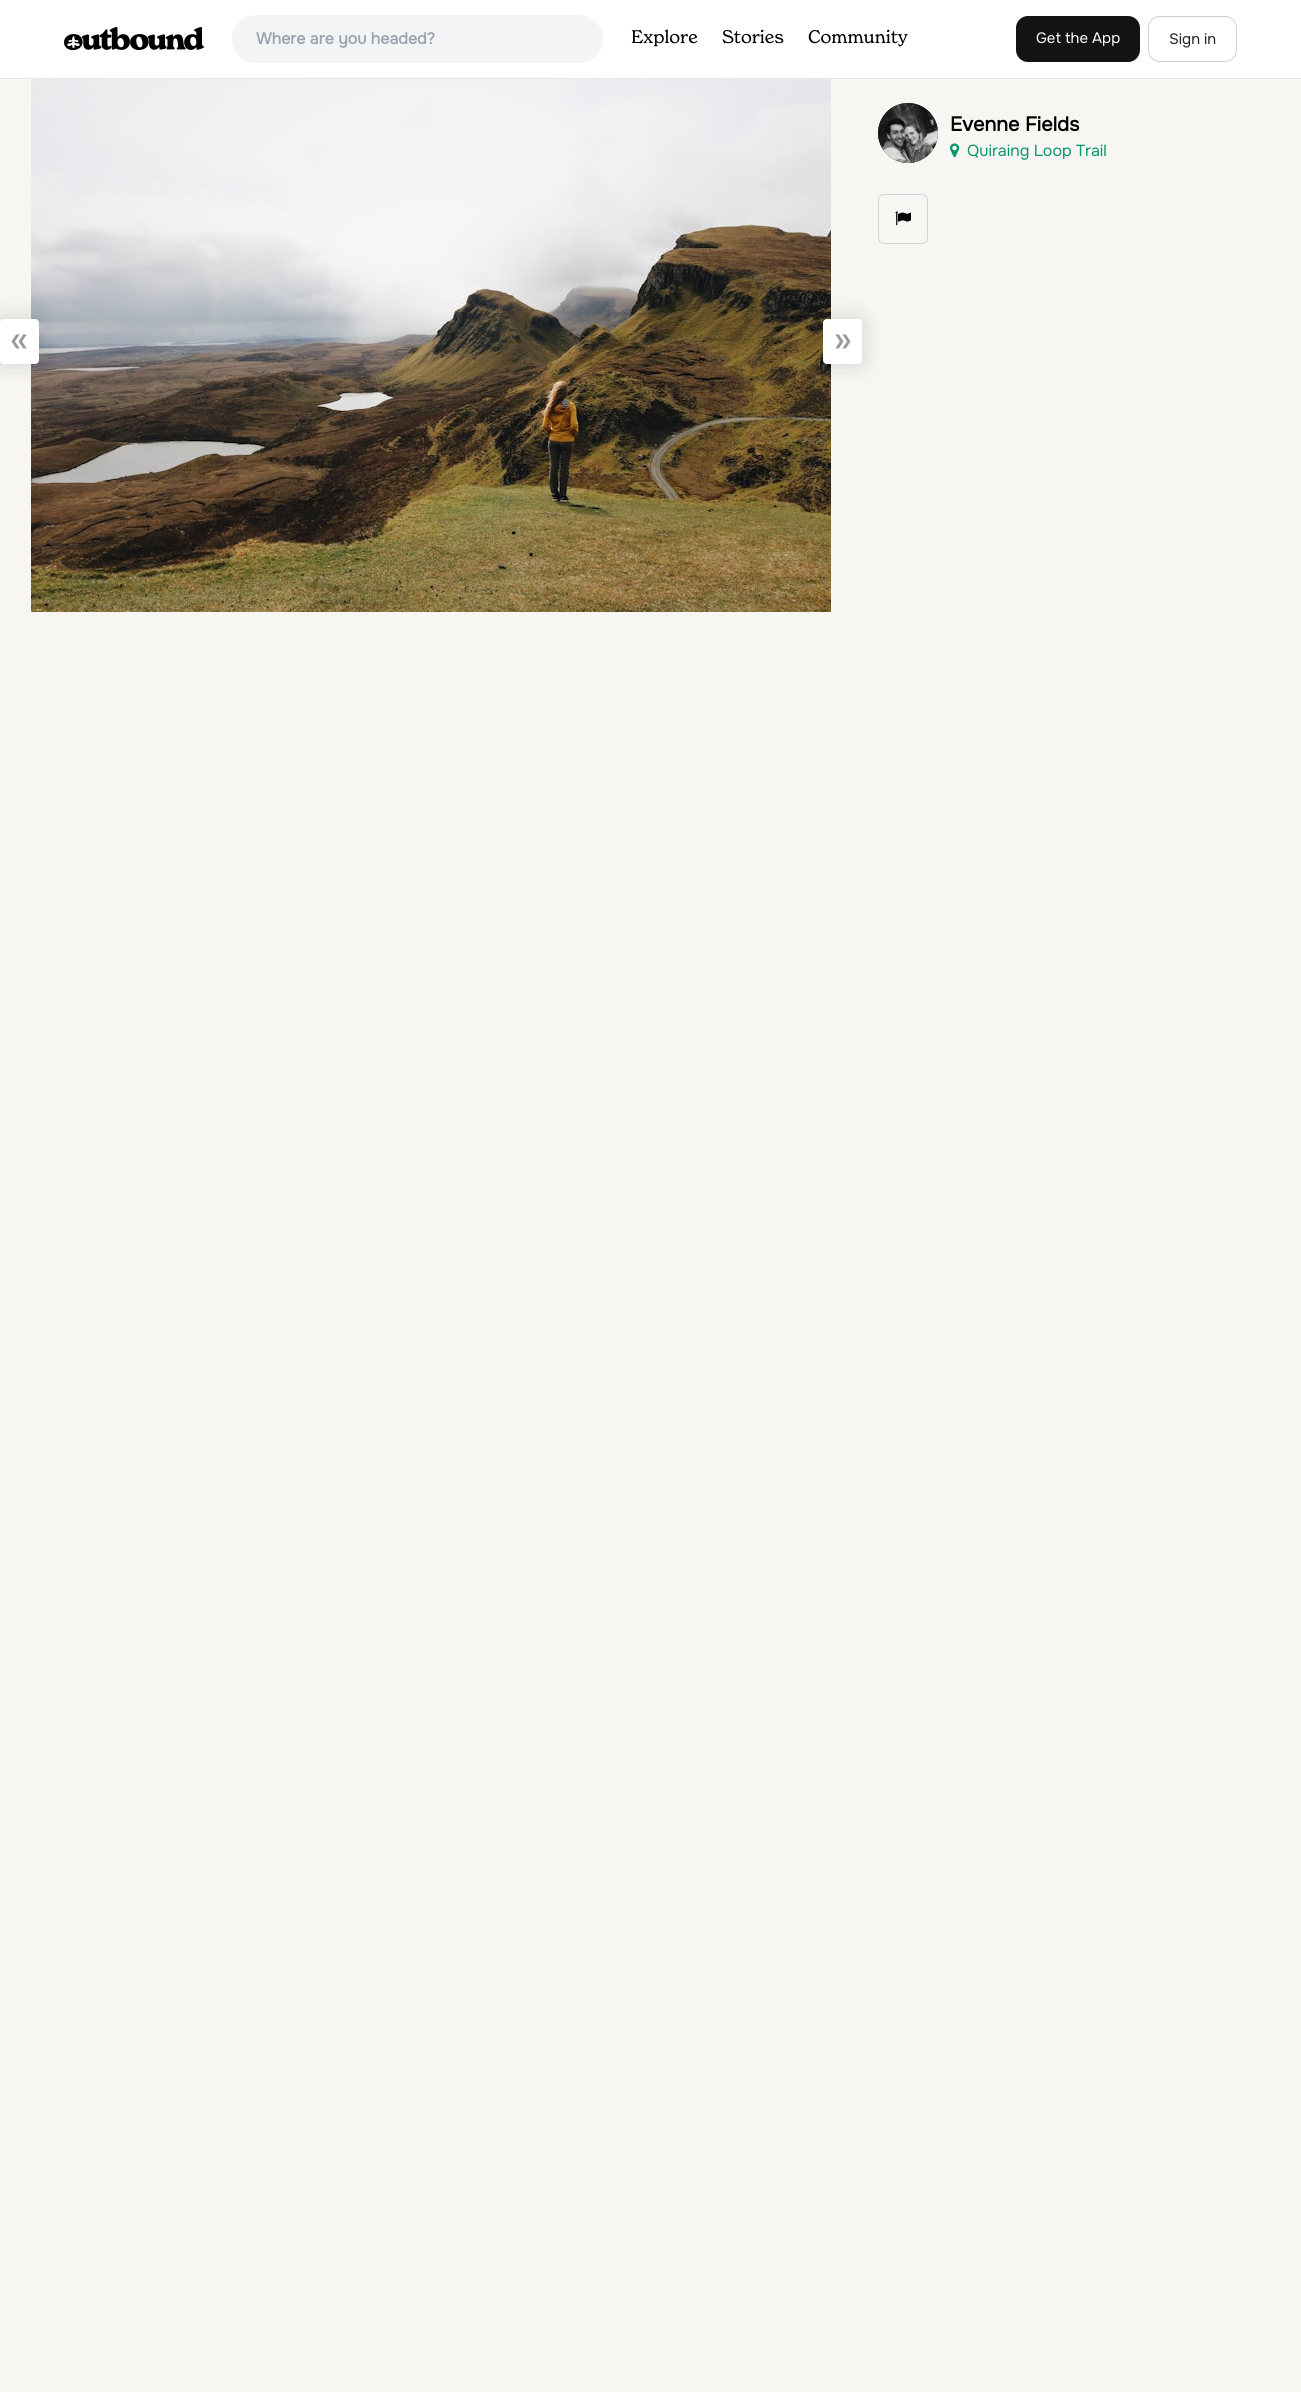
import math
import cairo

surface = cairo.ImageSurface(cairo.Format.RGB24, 1301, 2392)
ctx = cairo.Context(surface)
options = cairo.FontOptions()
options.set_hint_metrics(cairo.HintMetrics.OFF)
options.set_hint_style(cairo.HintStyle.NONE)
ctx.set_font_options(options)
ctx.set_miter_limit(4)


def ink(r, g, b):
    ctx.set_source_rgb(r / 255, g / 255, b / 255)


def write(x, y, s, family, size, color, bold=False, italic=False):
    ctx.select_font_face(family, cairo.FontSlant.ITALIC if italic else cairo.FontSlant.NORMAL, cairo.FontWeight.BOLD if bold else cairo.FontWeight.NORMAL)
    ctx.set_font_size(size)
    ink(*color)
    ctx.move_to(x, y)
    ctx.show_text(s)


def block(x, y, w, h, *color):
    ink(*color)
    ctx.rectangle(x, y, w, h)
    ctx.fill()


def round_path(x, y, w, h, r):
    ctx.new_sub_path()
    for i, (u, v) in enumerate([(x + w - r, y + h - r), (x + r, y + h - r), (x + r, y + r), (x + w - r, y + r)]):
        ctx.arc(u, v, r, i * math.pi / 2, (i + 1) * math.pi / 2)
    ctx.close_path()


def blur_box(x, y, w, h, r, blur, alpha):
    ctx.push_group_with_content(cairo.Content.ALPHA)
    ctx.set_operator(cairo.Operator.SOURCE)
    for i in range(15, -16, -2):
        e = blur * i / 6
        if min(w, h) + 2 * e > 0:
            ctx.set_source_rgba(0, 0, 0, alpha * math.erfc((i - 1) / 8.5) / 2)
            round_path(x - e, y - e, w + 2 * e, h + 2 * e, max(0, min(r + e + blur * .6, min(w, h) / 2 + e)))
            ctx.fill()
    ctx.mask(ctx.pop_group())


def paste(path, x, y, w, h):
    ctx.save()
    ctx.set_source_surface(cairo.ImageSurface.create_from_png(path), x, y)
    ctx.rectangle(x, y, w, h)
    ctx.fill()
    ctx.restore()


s1 = dict(family="Onest", size=16, color=(156, 163, 175), bold=True)
s2 = dict(family="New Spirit", size=18, color=(0, 0, 0))
s3 = dict(family="Onest", size=15, color=(255, 255, 255))
s4 = dict(family="Onest", size=15, color=(35, 35, 35))
s5 = dict(family="Onest", size=20, color=(0, 0, 0), bold=True)
s6 = dict(family="Onest", size=16, color=(5, 150, 105))
s7 = dict(family="Onest", size=40, color=(153, 153, 153))

ink(248, 246, 242)
ctx.paint()
block(0, 0, 1301, 78, 255, 255, 255)
block(0, 78, 1301, 1, 229, 231, 235)
paste("pic1.png", 64, 27, 140, 24)
ink(243, 244, 246)
round_path(232, 15, 371, 48, 24)
ctx.fill()
write(256, 44, "Where are you headed?", **s1)
write(631, 43, "Explore", **s2)
write(722, 43, "Stories", **s2)
write(808, 43, "Community", **s2)
ink(19, 19, 19)
round_path(1016, 16, 124, 46, 12)
ctx.fill()
write(1036, 43, "Get the App", **s3)
round_path(1148.5, 16.5, 88, 45, 11.5)
ink(207, 207, 207)
ctx.set_line_width(1)
ctx.stroke()
write(1169, 44, "Sign in", **s4)
ink(51, 51, 51)
ctx.new_path()
ctx.arc(908, 133, 30, 0, 2 * math.pi)
ctx.fill()
paste("pic2.png", 878, 103, 60, 60)
write(950, 131, "Evenne Fields", **s5)
paste("pic3.png", 950, 143, 10, 15)
write(967, 156, "Quiraing Loop Trail", **s6)
round_path(878.5, 194.5, 49, 49, 5.5)
ink(209, 213, 219)
ctx.stroke()
paste("pic4.png", 895, 211, 16, 15)
paste("pic5.png", 31, 79, 800, 533)
ink(0, 0, 0)
blur_box(0, 319, 39, 45, 4, 12, 0.15)
ink(255, 255, 255)
round_path(0, 319, 39, 45, 4)
ctx.fill()
write(10, 352, "«", **s7)
ink(0, 0, 0)
blur_box(823, 319, 39, 45, 4, 12, 0.15)
ink(255, 255, 255)
round_path(823, 319, 39, 45, 4)
ctx.fill()
write(833, 352, "»", **s7)
surface.write_to_png("screenshot.png")
